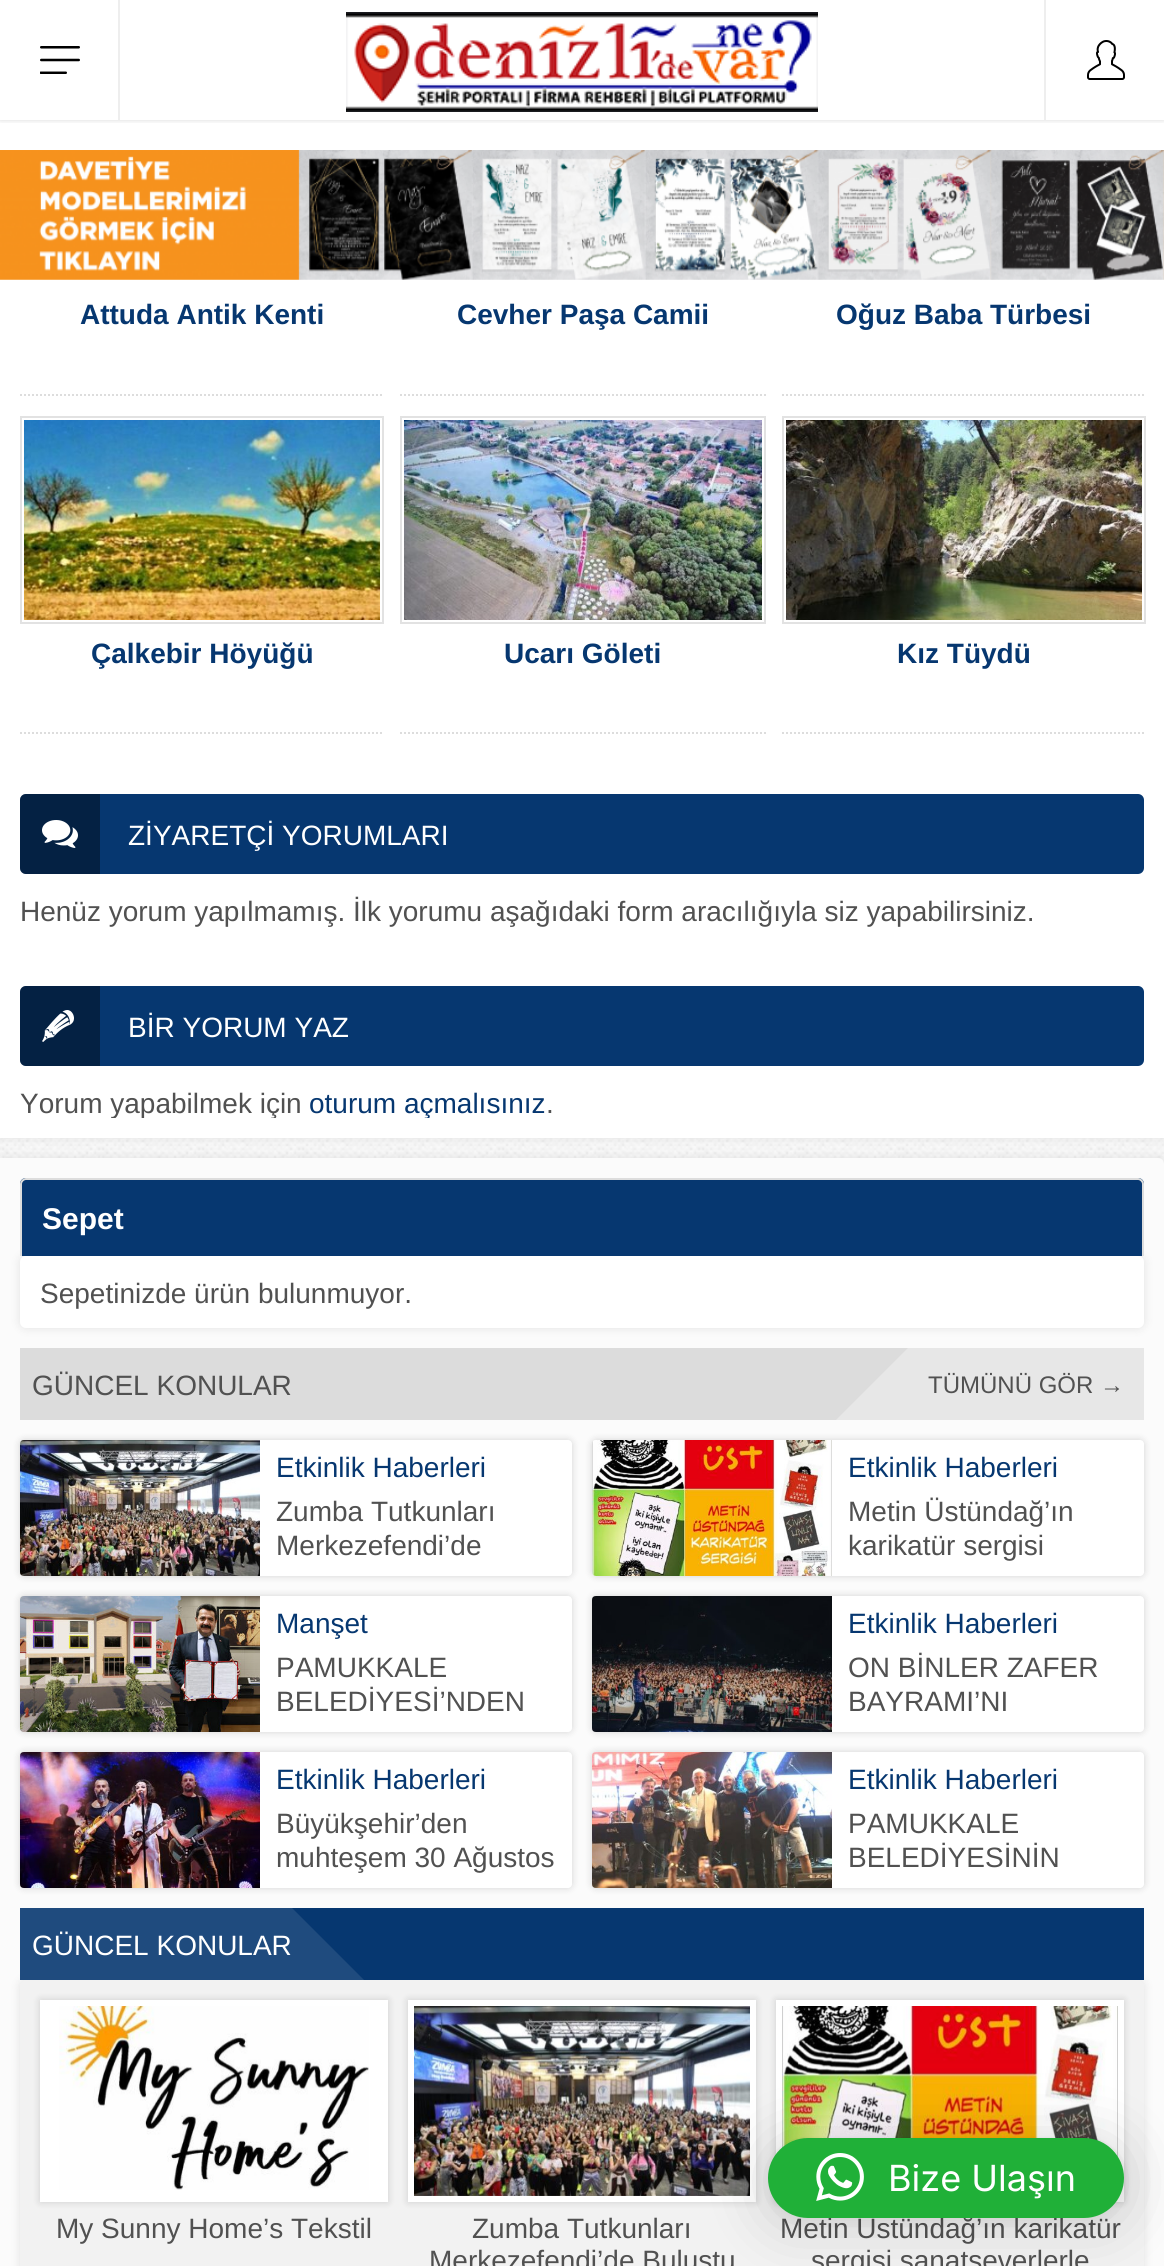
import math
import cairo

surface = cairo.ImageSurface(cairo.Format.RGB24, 1164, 2266)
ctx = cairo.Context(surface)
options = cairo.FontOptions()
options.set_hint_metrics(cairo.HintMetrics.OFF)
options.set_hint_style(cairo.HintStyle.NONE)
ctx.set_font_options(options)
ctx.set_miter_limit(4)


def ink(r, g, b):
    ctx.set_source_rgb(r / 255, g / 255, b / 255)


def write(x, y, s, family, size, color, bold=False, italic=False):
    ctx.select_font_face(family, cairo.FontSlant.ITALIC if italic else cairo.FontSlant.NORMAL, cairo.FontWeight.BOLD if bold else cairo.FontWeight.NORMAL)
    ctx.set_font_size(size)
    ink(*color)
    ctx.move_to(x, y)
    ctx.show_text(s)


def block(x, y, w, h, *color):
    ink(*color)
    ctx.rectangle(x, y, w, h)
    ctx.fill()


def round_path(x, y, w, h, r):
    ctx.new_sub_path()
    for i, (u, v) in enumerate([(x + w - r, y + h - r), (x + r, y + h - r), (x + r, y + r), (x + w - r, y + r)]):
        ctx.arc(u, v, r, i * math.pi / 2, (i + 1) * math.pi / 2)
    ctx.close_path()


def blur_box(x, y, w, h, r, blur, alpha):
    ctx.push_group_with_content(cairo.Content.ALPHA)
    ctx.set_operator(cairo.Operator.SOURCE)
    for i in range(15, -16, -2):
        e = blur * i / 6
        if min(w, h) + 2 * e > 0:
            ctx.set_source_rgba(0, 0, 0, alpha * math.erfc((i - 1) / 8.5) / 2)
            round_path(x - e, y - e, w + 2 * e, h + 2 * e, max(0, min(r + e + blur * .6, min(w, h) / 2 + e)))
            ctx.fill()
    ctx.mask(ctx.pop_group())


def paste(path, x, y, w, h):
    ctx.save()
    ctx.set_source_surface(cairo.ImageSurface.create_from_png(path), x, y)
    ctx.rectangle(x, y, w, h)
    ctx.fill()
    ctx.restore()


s1 = dict(family="Liberation Sans", size=28, color=(6, 55, 112), bold=True)
s2 = dict(family="Liberation Sans", size=28, color=(255, 255, 255))
s3 = dict(family="Liberation Sans", size=28, color=(81, 81, 81))
s4 = dict(family="Liberation Sans", size=28, color=(6, 55, 112))
s5 = dict(family="Liberation Sans", size=30, color=(255, 255, 255), bold=True)
s6 = dict(family="Liberation Sans", size=24, color=(81, 81, 81))
s7 = dict(family="Inter", size=36, color=(255, 255, 255))

ink(255, 255, 255)
ctx.paint()
paste("pic1.png", 0, 1138, 1164, 26)
ink(0, 0, 0)
blur_box(0, -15, 1164, 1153, 0, 5, 0.08)
block(0, 0, 1164, 1138, 255, 255, 255)
ctx.save()
ctx.rectangle(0, 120, 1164, 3)
ctx.clip()
ink(0, 0, 0)
blur_box(0, 0, 1164, 120, 0, 3, 0.15)
ctx.restore()
paste("pic2.png", 346, 12, 472, 100)
block(118, 0, 2, 120, 238, 238, 238)
paste("pic3.png", 40, 46, 40, 28)
block(1044, 0, 2, 120, 238, 238, 238)
paste("pic4.png", 1087, 40, 38, 40)
paste("pic5.png", 0, 150, 1164, 130)
ctx.new_path()
ctx.move_to(20, 395)
ctx.line_to(384, 395)
ink(221, 221, 221)
ctx.set_dash([2, 2])
ctx.stroke()
write(80, 324, "Attuda Antik Kenti", **s1)
ctx.new_path()
ctx.move_to(400, 395)
ctx.line_to(766, 395)
ink(221, 221, 221)
ctx.stroke()
write(457, 324, "Cevher Paşa Camii", **s1)
ctx.new_path()
ctx.move_to(782, 395)
ctx.line_to(1146, 395)
ink(221, 221, 221)
ctx.stroke()
write(836, 324, "Oğuz Baba Türbesi", **s1)
ctx.new_path()
ctx.move_to(20, 733)
ctx.line_to(384, 733)
ink(221, 221, 221)
ctx.stroke()
ctx.rectangle(21, 417, 362, 206)
ink(226, 226, 226)
ctx.set_dash([])
ctx.stroke()
paste("pic6.png", 24, 420, 356, 200)
write(91, 663, "Çalkebir Höyüğü", **s1)
ctx.new_path()
ctx.move_to(400, 733)
ctx.line_to(766, 733)
ink(221, 221, 221)
ctx.set_dash([2, 2])
ctx.stroke()
ctx.rectangle(401, 417, 364, 206)
ink(226, 226, 226)
ctx.set_dash([])
ctx.stroke()
paste("pic7.png", 404, 420, 358, 200)
write(504, 663, "Ucarı Göleti", **s1)
ctx.new_path()
ctx.move_to(782, 733)
ctx.line_to(1146, 733)
ink(221, 221, 221)
ctx.set_dash([2, 2])
ctx.stroke()
ctx.rectangle(783, 417, 362, 206)
ink(226, 226, 226)
ctx.set_dash([])
ctx.stroke()
paste("pic8.png", 786, 420, 356, 200)
write(897, 663, "Kız Tüydü", **s1)
round_path(20, 794, 1124, 80, 6)
ctx.fill()
ctx.set_source_rgba(0, 0, 0, 0.4)
ctx.new_path()
ctx.move_to(26, 794)
ctx.line_to(100, 794)
ctx.line_to(100, 874)
ctx.line_to(26, 874)
ctx.curve_to(22.5, 874, 20, 871.5, 20, 868)
ctx.line_to(20, 800)
ctx.curve_to(20, 796.5, 22.5, 794, 26, 794)
ctx.close_path()
ctx.fill()
paste("pic9.png", 42, 820, 36, 28)
write(128, 845, "ZİYARETÇİ YORUMLARI", **s2)
write(20, 921, "Henüz yorum yapılmamış. İlk yorumu aşağıdaki form aracılığıyla siz yapabilirsiniz.", **s3)
ink(6, 55, 112)
round_path(20, 986, 1124, 80, 6)
ctx.fill()
ctx.set_source_rgba(0, 0, 0, 0.4)
ctx.new_path()
ctx.move_to(26, 986)
ctx.line_to(100, 986)
ctx.line_to(100, 1066)
ctx.line_to(26, 1066)
ctx.curve_to(22.5, 1066, 20, 1063.5, 20, 1060)
ctx.line_to(20, 992)
ctx.curve_to(20, 988.5, 22.5, 986, 26, 986)
ctx.close_path()
ctx.fill()
paste("pic10.png", 42, 1010, 32, 32)
write(128, 1037, "BİR YORUM YAZ", **s2)
ctx.save()
ctx.rectangle(20, 1086, 1124, 32)
ctx.clip()
write(20, 1113, "Yorum yapabilmek için", **s3)
write(309, 1113, "oturum açmalısınız", **s4)
ctx.restore()
write(546, 1113, ".", **s3)
ink(0, 0, 0)
blur_box(0, 1158, 1164, 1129, 6, 5, 0.08)
ink(251, 251, 251)
ctx.new_path()
ctx.move_to(0, 1158)
ctx.line_to(1158, 1158)
ctx.curve_to(1161.5, 1158, 1164, 1160.5, 1164, 1164)
ctx.line_to(1164, 2266)
ctx.curve_to(1164, 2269.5, 1161.5, 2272, 1158, 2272)
ctx.line_to(0, 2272)
ctx.close_path()
ctx.fill()
ink(0, 0, 0)
blur_box(20, 1256, 1124, 72, 6, 5, 0.1)
ink(6, 55, 112)
ctx.new_path()
ctx.move_to(26, 1178)
ctx.line_to(1138, 1178)
ctx.curve_to(1141.5, 1178, 1144, 1180.5, 1144, 1184)
ctx.line_to(1144, 1256)
ctx.line_to(20, 1256)
ctx.line_to(20, 1184)
ctx.curve_to(20, 1180.5, 22.5, 1178, 26, 1178)
ctx.close_path()
ctx.fill()
ink(221, 221, 221)
ctx.set_fill_rule(cairo.FillRule.EVEN_ODD)
ctx.new_path()
ctx.move_to(26, 1178)
ctx.line_to(1138, 1178)
ctx.curve_to(1141, 1178, 1144, 1181, 1144, 1184)
ctx.line_to(1144, 1256)
ctx.line_to(20, 1256)
ctx.line_to(20, 1184)
ctx.curve_to(20, 1181, 23, 1178, 26, 1178)
ctx.close_path()
ctx.move_to(26, 1180)
ctx.line_to(1138, 1180)
ctx.curve_to(1140, 1180, 1142, 1182, 1142, 1184)
ctx.line_to(1142, 1256)
ctx.line_to(22, 1256)
ctx.line_to(22, 1184)
ctx.curve_to(22, 1182, 24, 1180, 26, 1180)
ctx.close_path()
ctx.fill()
write(42, 1229, "Sepet", **s5)
round_path(20, 1256, 1124, 72, 6)
ctx.fill()
write(40, 1303, "Sepetinizde ürün bulunmuyor.", **s3)
block(20, 1348, 888, 72, 220, 220, 220)
write(32, 1395, "GÜNCEL KONULAR", **s3)
ink(231, 231, 231)
ctx.set_fill_rule(cairo.FillRule.WINDING)
ctx.new_path()
ctx.move_to(908, 1420)
ctx.line_to(836, 1420)
ctx.line_to(908, 1348)
ctx.close_path()
ctx.fill()
block(908, 1348, 236, 72, 231, 231, 231)
write(928, 1393, "TÜMÜNÜ GÖR →", **s6)
ink(0, 0, 0)
blur_box(20, 1440, 552, 136, 4, 4, 0.15)
ink(255, 255, 255)
round_path(20, 1440, 552, 136, 4)
ctx.fill()
paste("pic11.png", 20, 1440, 240, 136)
write(276, 1477, "Etkinlik Haberleri", **s4)
write(276, 1521, "Zumba Tutkunları", **s3)
write(276, 1555, "Merkezefendi’de", **s3)
ink(0, 0, 0)
blur_box(592, 1440, 552, 136, 4, 4, 0.15)
ink(255, 255, 255)
round_path(592, 1440, 552, 136, 4)
ctx.fill()
paste("pic12.png", 592, 1440, 240, 136)
write(848, 1477, "Etkinlik Haberleri", **s4)
write(848, 1521, "Metin Üstündağ’ın", **s3)
write(848, 1555, "karikatür sergisi", **s3)
ink(0, 0, 0)
blur_box(20, 1596, 552, 136, 4, 4, 0.15)
ink(255, 255, 255)
round_path(20, 1596, 552, 136, 4)
ctx.fill()
paste("pic13.png", 20, 1596, 240, 136)
write(276, 1633, "Manşet", **s4)
write(276, 1677, "PAMUKKALE", **s3)
write(276, 1711, "BELEDİYESİ’NDEN", **s3)
ink(0, 0, 0)
blur_box(592, 1596, 552, 136, 4, 4, 0.15)
ink(255, 255, 255)
round_path(592, 1596, 552, 136, 4)
ctx.fill()
paste("pic14.png", 592, 1596, 240, 136)
write(848, 1633, "Etkinlik Haberleri", **s4)
write(848, 1677, "ON BİNLER ZAFER", **s3)
write(848, 1711, "BAYRAMI’NI", **s3)
ink(0, 0, 0)
blur_box(20, 1752, 552, 136, 4, 4, 0.15)
ink(255, 255, 255)
round_path(20, 1752, 552, 136, 4)
ctx.fill()
paste("pic15.png", 20, 1752, 240, 136)
write(276, 1789, "Etkinlik Haberleri", **s4)
write(276, 1833, "Büyükşehir’den", **s3)
write(276, 1867, "muhteşem 30 Ağustos", **s3)
ink(0, 0, 0)
blur_box(592, 1752, 552, 136, 4, 4, 0.15)
ink(255, 255, 255)
round_path(592, 1752, 552, 136, 4)
ctx.fill()
paste("pic16.png", 592, 1752, 240, 136)
write(848, 1789, "Etkinlik Haberleri", **s4)
write(848, 1833, "PAMUKKALE", **s3)
write(848, 1867, "BELEDİYESİNİN", **s3)
ink(0, 0, 0)
blur_box(20, 1980, 1124, 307, 6, 5, 0.1)
block(292, 1908, 852, 72, 6, 55, 112)
block(20, 1908, 272, 72, 31, 75, 126)
write(32, 1955, "GÜNCEL KONULAR", **s2)
ink(31, 75, 126)
ctx.new_path()
ctx.move_to(364, 1980)
ctx.line_to(292, 1980)
ctx.line_to(292, 1908)
ctx.close_path()
ctx.fill()
ink(242, 242, 242)
round_path(20, 1980, 1124, 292, 6)
ctx.fill()
ink(0, 0, 0)
blur_box(40, 2000, 348, 202, 0, 4, 0.15)
block(40, 2000, 348, 202, 255, 255, 255)
paste("pic17.png", 59, 2006, 310, 184)
write(56, 2238, "My Sunny Home’s Tekstil", **s3)
ink(0, 0, 0)
blur_box(408, 2000, 348, 202, 0, 4, 0.15)
block(408, 2000, 348, 202, 255, 255, 255)
paste("pic18.png", 414, 2006, 336, 190)
write(472, 2238, "Zumba Tutkunları", **s3)
write(429, 2270, "Merkezefendi’de Buluştu", **s3)
ink(0, 0, 0)
blur_box(776, 2000, 348, 202, 0, 4, 0.15)
block(776, 2000, 348, 202, 255, 255, 255)
paste("pic19.png", 782, 2006, 336, 151)
write(780, 2238, "Metin Üstündağ’ın karikatür", **s3)
write(811, 2270, "sergisi sanatseverlerle", **s3)
ink(0, 0, 0)
blur_box(768, 2142, 356, 80, 40, 32, 0.16)
blur_box(768, 2140, 356, 80, 40, 6, 0.06)
ink(32, 176, 56)
round_path(768, 2138, 356, 80, 40)
ctx.fill()
paste("pic20.png", 816, 2153, 48, 48)
write(888, 2191, "Bize Ulaşın", **s7)
surface.write_to_png("screenshot.png")
